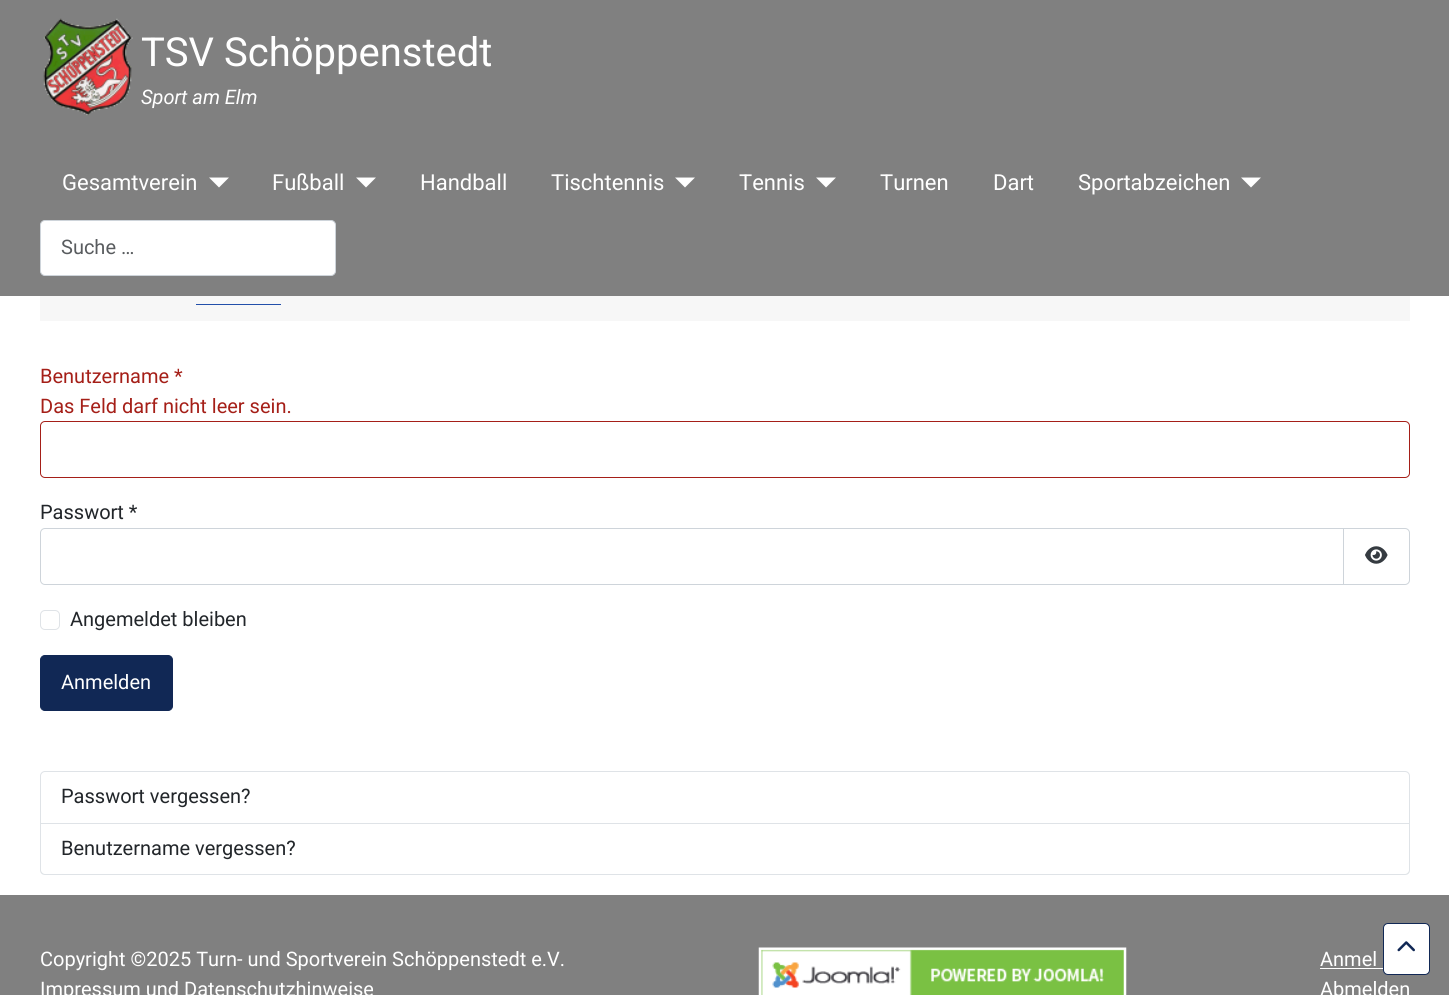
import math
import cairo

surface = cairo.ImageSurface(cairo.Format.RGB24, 1449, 995)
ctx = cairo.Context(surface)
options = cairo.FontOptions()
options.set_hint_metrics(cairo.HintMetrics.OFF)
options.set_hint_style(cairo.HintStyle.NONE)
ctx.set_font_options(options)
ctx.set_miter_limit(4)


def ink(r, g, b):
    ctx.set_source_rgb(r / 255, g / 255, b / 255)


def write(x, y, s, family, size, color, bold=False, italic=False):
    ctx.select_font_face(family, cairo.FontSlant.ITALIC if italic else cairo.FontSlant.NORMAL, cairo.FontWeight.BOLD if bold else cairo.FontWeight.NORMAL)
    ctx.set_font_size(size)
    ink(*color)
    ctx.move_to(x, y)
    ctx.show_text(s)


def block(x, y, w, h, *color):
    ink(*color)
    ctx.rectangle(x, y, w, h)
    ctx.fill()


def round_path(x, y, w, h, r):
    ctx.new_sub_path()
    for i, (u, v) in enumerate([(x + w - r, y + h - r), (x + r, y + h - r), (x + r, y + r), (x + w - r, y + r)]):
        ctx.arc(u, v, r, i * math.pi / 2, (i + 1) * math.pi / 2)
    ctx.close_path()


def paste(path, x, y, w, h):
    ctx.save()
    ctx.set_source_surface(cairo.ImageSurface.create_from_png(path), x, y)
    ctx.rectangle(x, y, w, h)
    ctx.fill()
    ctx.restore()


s1 = dict(family="Roboto", size=40, color=(255, 255, 255))
s2 = dict(family="Roboto", size=20, color=(255, 255, 255), italic=True)
s3 = dict(family="Roboto", size=22, color=(255, 255, 255))
s4 = dict(family="Roboto", size=20, color=(89, 92, 95))
s5 = dict(family="Roboto", size=20, color=(165, 31, 24))
s6 = dict(family="Roboto", size=20, color=(34, 38, 42))
s7 = dict(family="Roboto", size=20, color=(255, 255, 255))

ink(255, 255, 255)
ctx.paint()
block(0, 0, 1449, 296, 128, 128, 128)
paste("pic1.png", 43, 18, 90, 98)
write(141, 66, "TSV Schöppenstedt", **s1)
write(141, 104, "Sport am Elm", **s2)
write(62, 190, "Gesamtverein", **s3)
ctx.new_path()
ctx.move_to(209, 177.5)
ctx.line_to(229, 177.5)
ctx.line_to(219, 187.5)
ctx.close_path()
ctx.fill()
write(272, 190, "Fußball", **s3)
ctx.new_path()
ctx.move_to(356, 177.5)
ctx.line_to(376, 177.5)
ctx.line_to(366, 187.5)
ctx.close_path()
ctx.fill()
write(420, 190, "Handball", **s3)
write(551, 190, "Tischtennis", **s3)
ctx.new_path()
ctx.move_to(675, 177.5)
ctx.line_to(695, 177.5)
ctx.line_to(685, 187.5)
ctx.close_path()
ctx.fill()
write(739, 190, "Tennis", **s3)
ctx.new_path()
ctx.move_to(816, 177.5)
ctx.line_to(836, 177.5)
ctx.line_to(826, 187.5)
ctx.close_path()
ctx.fill()
write(880, 190, "Turnen", **s3)
write(993, 190, "Dart", **s3)
write(1078, 190, "Sportabzeichen", **s3)
ctx.new_path()
ctx.move_to(1241, 177.5)
ctx.line_to(1261, 177.5)
ctx.line_to(1251, 187.5)
ctx.close_path()
ctx.fill()
round_path(40.5, 220.5, 295, 55, 4.5)
ctx.fill_preserve()
ink(206, 212, 218)
ctx.set_line_width(1)
ctx.stroke()
write(61, 254, "Suche …", **s4)
block(40, 296, 1370, 25, 247, 247, 247)
block(196, 304, 85, 1, 34, 79, 170)
write(40, 383, "Benutzername *", **s5)
write(40, 413, "Das Feld darf nicht leer sein.", **s5)
round_path(40.5, 421.5, 1369, 56, 4.5)
ctx.stroke()
write(40, 519, "Passwort *", **s6)
ctx.new_path()
ctx.move_to(45, 528.5)
ctx.line_to(1343.5, 528.5)
ctx.line_to(1343.5, 584.5)
ctx.line_to(45, 584.5)
ctx.curve_to(42.5, 584.5, 40.5, 582.5, 40.5, 580)
ctx.line_to(40.5, 533)
ctx.curve_to(40.5, 530.5, 42.5, 528.5, 45, 528.5)
ctx.close_path()
ink(206, 212, 218)
ctx.stroke()
ink(255, 255, 255)
ctx.new_path()
ctx.move_to(1343.5, 528.5)
ctx.line_to(1405, 528.5)
ctx.curve_to(1407.5, 528.5, 1409.5, 530.5, 1409.5, 533)
ctx.line_to(1409.5, 580)
ctx.curve_to(1409.5, 582.5, 1407.5, 584.5, 1405, 584.5)
ctx.line_to(1343.5, 584.5)
ctx.close_path()
ctx.fill_preserve()
ink(206, 212, 218)
ctx.stroke()
paste("pic2.png", 1365, 546, 23, 18)
round_path(40.5, 610.5, 19, 19, 4.5)
ink(223, 227, 231)
ctx.stroke()
write(70, 626, "Angemeldet bleiben", **s6)
ink(17, 40, 85)
round_path(40.5, 655.5, 132, 55, 4.5)
ctx.fill_preserve()
ctx.stroke()
write(61, 689, "Anmelden", **s7)
ctx.new_path()
ctx.move_to(45, 771.5)
ctx.line_to(1405, 771.5)
ctx.curve_to(1407.5, 771.5, 1409.5, 773.5, 1409.5, 776)
ctx.line_to(1409.5, 823.5)
ctx.line_to(40.5, 823.5)
ctx.line_to(40.5, 776)
ctx.curve_to(40.5, 773.5, 42.5, 771.5, 45, 771.5)
ctx.close_path()
ink(223, 227, 231)
ctx.stroke()
write(61, 803, "Passwort vergessen?", **s6)
ink(223, 227, 231)
ctx.set_fill_rule(cairo.FillRule.EVEN_ODD)
ctx.new_path()
ctx.move_to(40, 824)
ctx.line_to(1410, 824)
ctx.line_to(1410, 870)
ctx.curve_to(1410, 873, 1408, 875, 1405, 875)
ctx.line_to(45, 875)
ctx.curve_to(42, 875, 40, 873, 40, 870)
ctx.close_path()
ctx.move_to(41, 824)
ctx.line_to(1409, 824)
ctx.line_to(1409, 870)
ctx.curve_to(1409, 872, 1407, 874, 1405, 874)
ctx.line_to(45, 874)
ctx.curve_to(43, 874, 41, 872, 41, 870)
ctx.close_path()
ctx.fill()
write(61, 855, "Benutzername vergessen?", **s6)
block(0, 895, 1449, 100, 128, 128, 128)
ink(255, 255, 255)
round_path(1383.5, 923.5, 46, 51, 4.5)
ctx.fill_preserve()
ink(17, 40, 85)
ctx.stroke()
paste("pic3.png", 1397, 941, 18, 11)
write(40, 966, "Copyright ©2025 Turn- und Sportverein Schöppenstedt e.V.", **s7)
write(40, 996, "Impressum und Datenschutzhinweise", **s7)
paste("pic4.png", 758, 947, 369, 48)
write(1320, 966, "Anmel", **s7)
block(1320, 968, 63, 1, 255, 255, 255)
write(1320, 996, "Abmelden", **s7)
surface.write_to_png("screenshot.png")
